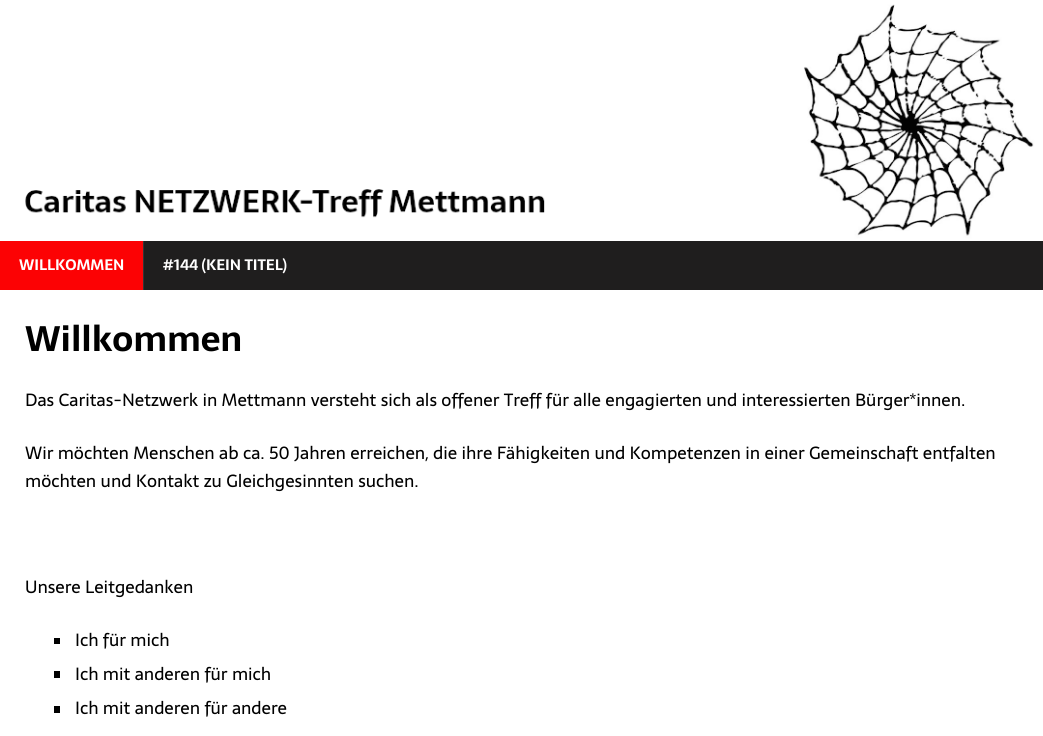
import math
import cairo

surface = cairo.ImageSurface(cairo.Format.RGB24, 1043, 736)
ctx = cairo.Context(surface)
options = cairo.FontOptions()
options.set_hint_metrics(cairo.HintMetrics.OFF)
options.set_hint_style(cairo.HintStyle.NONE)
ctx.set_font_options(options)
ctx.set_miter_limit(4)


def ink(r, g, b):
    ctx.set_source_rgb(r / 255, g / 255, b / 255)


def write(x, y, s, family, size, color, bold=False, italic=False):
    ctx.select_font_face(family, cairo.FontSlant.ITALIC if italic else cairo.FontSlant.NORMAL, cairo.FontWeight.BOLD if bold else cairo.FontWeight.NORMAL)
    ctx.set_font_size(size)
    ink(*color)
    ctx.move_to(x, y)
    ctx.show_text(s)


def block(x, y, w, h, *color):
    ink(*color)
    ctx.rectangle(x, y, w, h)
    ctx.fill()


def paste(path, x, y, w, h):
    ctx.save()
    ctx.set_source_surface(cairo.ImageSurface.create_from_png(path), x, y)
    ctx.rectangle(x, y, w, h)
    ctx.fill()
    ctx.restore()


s1 = dict(family="Sarala", size=15, color=(255, 255, 255), bold=True)
s2 = dict(family="Sarala", size=35, color=(0, 0, 0), bold=True)
s3 = dict(family="Sarala", size=17.5, color=(0, 0, 0))

ink(255, 255, 255)
ctx.paint()
paste("pic1.png", 0, 4, 1043, 237)
block(144, 241, 899, 49, 31, 30, 30)
block(0, 241, 143, 49, 252, 2, 4)
write(19, 270, "WILLKOMMEN", **s1)
block(143, 241, 1, 49, 53, 53, 53)
write(163, 270, "#144 (KEIN TITEL)", **s1)
write(25, 351, "Willkommen", **s2)
write(25, 406, "Das Caritas-Netzwerk in Mettmann versteht sich als offener Treff für alle engagierten und interessierten Bürger*innen.", **s3)
write(25, 459, "Wir möchten Menschen ab ca. 50 Jahren erreichen, die ihre Fähigkeiten und Kompetenzen in einer Gemeinschaft entfalten", **s3)
write(25, 487, "möchten und Kontakt zu Gleichgesinnten suchen.", **s3)
write(25, 593, "Unsere Leitgedanken", **s3)
block(54, 638, 6, 6, 0, 0, 0)
write(75, 646, "Ich für mich", **s3)
block(54, 671, 6, 7, 0, 0, 0)
write(75, 680, "Ich mit anderen für mich", **s3)
block(54, 706, 6, 7, 0, 0, 0)
write(75, 714, "Ich mit anderen für andere", **s3)
surface.write_to_png("screenshot.png")
